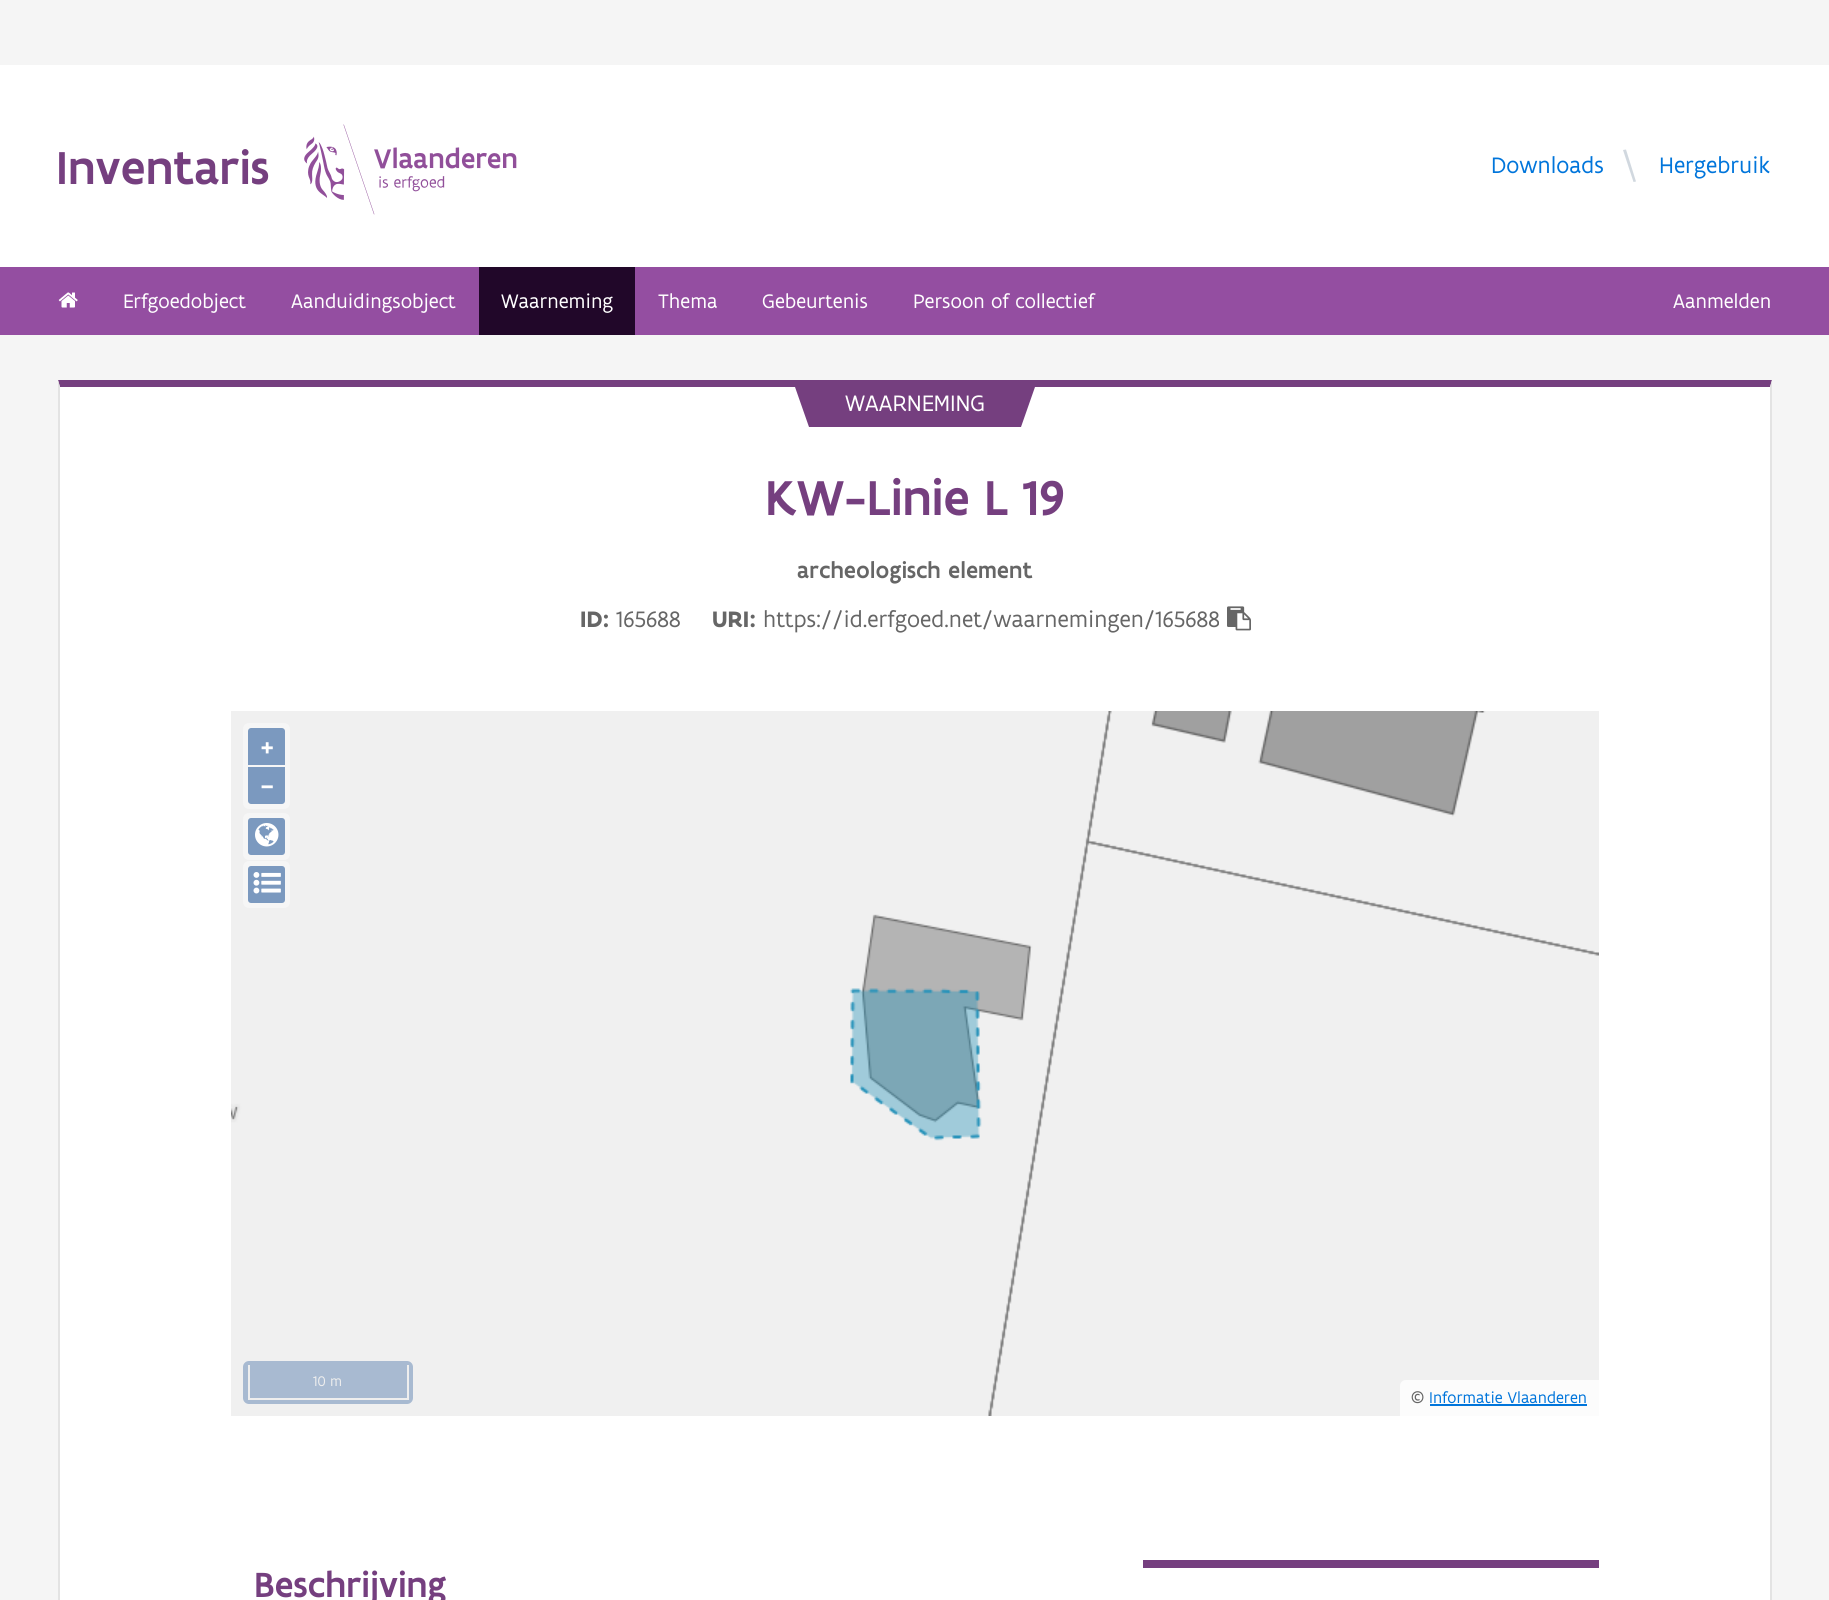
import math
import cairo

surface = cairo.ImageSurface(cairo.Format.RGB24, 1829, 1600)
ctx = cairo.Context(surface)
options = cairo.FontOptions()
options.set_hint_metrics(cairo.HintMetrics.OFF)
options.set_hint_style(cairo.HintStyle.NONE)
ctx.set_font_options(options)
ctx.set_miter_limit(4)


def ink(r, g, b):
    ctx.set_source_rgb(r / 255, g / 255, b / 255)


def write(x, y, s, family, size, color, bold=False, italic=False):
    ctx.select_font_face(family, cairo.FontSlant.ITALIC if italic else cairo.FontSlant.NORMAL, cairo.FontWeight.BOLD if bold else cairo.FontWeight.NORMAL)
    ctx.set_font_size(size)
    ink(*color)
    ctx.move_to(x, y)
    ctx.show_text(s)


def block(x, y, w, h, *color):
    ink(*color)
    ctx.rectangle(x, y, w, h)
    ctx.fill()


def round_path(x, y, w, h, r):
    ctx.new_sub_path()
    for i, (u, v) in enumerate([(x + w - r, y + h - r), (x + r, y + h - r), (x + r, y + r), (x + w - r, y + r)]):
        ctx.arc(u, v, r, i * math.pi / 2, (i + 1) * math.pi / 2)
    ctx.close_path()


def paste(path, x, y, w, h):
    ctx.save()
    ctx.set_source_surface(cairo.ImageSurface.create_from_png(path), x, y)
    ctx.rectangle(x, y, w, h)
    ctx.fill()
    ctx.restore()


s1 = dict(family="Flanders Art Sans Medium", size=49.5, color=(117, 63, 127))
s2 = dict(family="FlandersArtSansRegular", size=24, color=(0, 117, 219))
s3 = dict(family="FlandersArtSansRegular", size=21, color=(255, 255, 255))
s4 = dict(family="FlandersArtSansRegular", size=24, color=(255, 255, 255))
s5 = dict(family="Flanders Art Sans Medium", size=52.5, color=(117, 63, 127))
s6 = dict(family="Flanders Art Sans Medium", size=24, color=(102, 102, 102))
s7 = dict(family="Flanders Art Sans", size=24, color=(102, 102, 102), bold=True)
s8 = dict(family="FlandersArtSansRegular", size=24, color=(102, 102, 102))
s9 = dict(family="FlandersArtSansRegular", size=27, color=(255, 255, 255), bold=True)
s10 = dict(family="FlandersArtSansRegular", size=15, color=(238, 238, 238))
s11 = dict(family="FlandersArtSansRegular", size=16.75, color=(102, 102, 102))
s12 = dict(family="FlandersArtSansRegular", size=16.75, color=(0, 117, 219))
s13 = dict(family="Flanders Art Sans Medium", size=37.5, color=(117, 63, 127))

ink(245, 245, 245)
ctx.paint()
block(0, 65, 1829, 202, 255, 255, 255)
write(56, 184, "Inventaris", **s1)
paste("pic1.png", 304, 124, 213, 91)
write(1491, 173, "Downloads", **s2)
ink(209, 216, 223)
ctx.new_path()
ctx.move_to(1623, 150)
ctx.line_to(1626, 149.5)
ctx.line_to(1636, 181.5)
ctx.line_to(1633.5, 182)
ctx.close_path()
ctx.fill()
write(1659, 173, "Hergebruik", **s2)
block(0, 267, 1829, 68, 148, 78, 161)
paste("pic2.png", 58, 292, 20, 16)
write(123, 308, "Erfgoedobject", **s3)
write(291, 308, "Aanduidingsobject", **s3)
block(479, 267, 156, 68, 33, 7, 41)
write(501, 308, "Waarneming", **s3)
write(658, 308, "Thema", **s3)
write(762, 308, "Gebeurtenis", **s3)
write(913, 308, "Persoon of collectief", **s3)
write(1673, 308, "Aanmelden", **s3)
block(60, 387, 1710, 1213, 255, 255, 255)
ink(117, 63, 127)
ctx.new_path()
ctx.move_to(58, 380)
ctx.line_to(1772, 380)
ctx.line_to(1770, 387)
ctx.line_to(60, 387)
ctx.close_path()
ctx.fill()
ink(227, 227, 227)
ctx.new_path()
ctx.move_to(1772, 380)
ctx.line_to(1772, 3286)
ctx.line_to(1770, 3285)
ctx.line_to(1770, 387)
ctx.close_path()
ctx.fill()
ctx.new_path()
ctx.move_to(58, 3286)
ctx.line_to(58, 380)
ctx.line_to(60, 387)
ctx.line_to(60, 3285)
ctx.close_path()
ctx.fill()
ink(117, 63, 127)
ctx.new_path()
ctx.move_to(795, 387)
ctx.line_to(983, 387)
ctx.line_to(997, 427)
ctx.line_to(809, 427)
ctx.close_path()
ctx.fill()
ctx.new_path()
ctx.move_to(847, 387)
ctx.line_to(1035, 387)
ctx.line_to(1021, 427)
ctx.line_to(832, 427)
ctx.close_path()
ctx.fill()
write(845, 411, "WAARNEMING", **s4)
write(765, 515, "KW-Linie L 19", **s5)
write(797, 578, "archeologisch", **s6)
write(948, 578, "element", **s6)
write(580, 627, "ID:", **s7)
write(616, 627, "165688", **s8)
write(712, 627, "URI:", **s7)
write(763, 627, "https://id.erfgoed.net/waarnemingen/165688", **s8)
paste("pic3.png", 1227, 606, 24, 25)
paste("pic4.png", 231, 711, 1368, 705)
ink(246, 246, 246)
round_path(243, 723, 47, 86, 6)
ctx.fill()
ink(123, 153, 191)
ctx.new_path()
ctx.move_to(251, 728)
ctx.line_to(282, 728)
ctx.curve_to(283.5, 728, 285, 729.5, 285, 731)
ctx.line_to(285, 765)
ctx.line_to(248, 765)
ctx.line_to(248, 731)
ctx.curve_to(248, 729.5, 249.5, 728, 251, 728)
ctx.close_path()
ctx.fill()
write(260, 755, "+", **s9)
ink(123, 153, 191)
ctx.new_path()
ctx.move_to(248, 767)
ctx.line_to(285, 767)
ctx.line_to(285, 801)
ctx.curve_to(285, 802.5, 283.5, 804, 282, 804)
ctx.line_to(251, 804)
ctx.curve_to(249.5, 804, 248, 802.5, 248, 801)
ctx.close_path()
ctx.fill()
write(260, 794, "−", **s9)
ink(246, 246, 246)
round_path(243, 813, 47, 47, 6)
ctx.fill()
ink(123, 153, 191)
round_path(248, 818, 37, 37, 3)
ctx.fill()
paste("pic5.png", 255, 823, 24, 24)
ink(246, 246, 246)
round_path(243, 861, 47, 47, 6)
ctx.fill()
ink(123, 153, 191)
round_path(248, 866, 37, 37, 3)
ctx.fill()
paste("pic6.png", 253, 872, 28, 22)
ink(168, 186, 209)
round_path(243, 1361, 170, 43, 6)
ctx.fill()
block(407, 1365, 2, 35, 238, 238, 238)
block(248, 1398, 160, 2, 238, 238, 238)
block(248, 1365, 2, 35, 238, 238, 238)
write(313, 1386, "10 m", **s10)
ink(252, 252, 252)
ctx.new_path()
ctx.move_to(1406, 1380)
ctx.line_to(1599, 1380)
ctx.line_to(1599, 1416)
ctx.line_to(1400, 1416)
ctx.line_to(1400, 1386)
ctx.curve_to(1400, 1382.5, 1402.5, 1380, 1406, 1380)
ctx.close_path()
ctx.fill()
write(1411, 1403, "©", **s11)
write(1429, 1403, "Informatie Vlaanderen", **s12)
block(1430, 1404, 157, 2, 0, 117, 219)
block(1143, 1560, 456, 8, 117, 63, 127)
write(254, 1597, "Beschrijving", **s13)
surface.write_to_png("screenshot.png")
